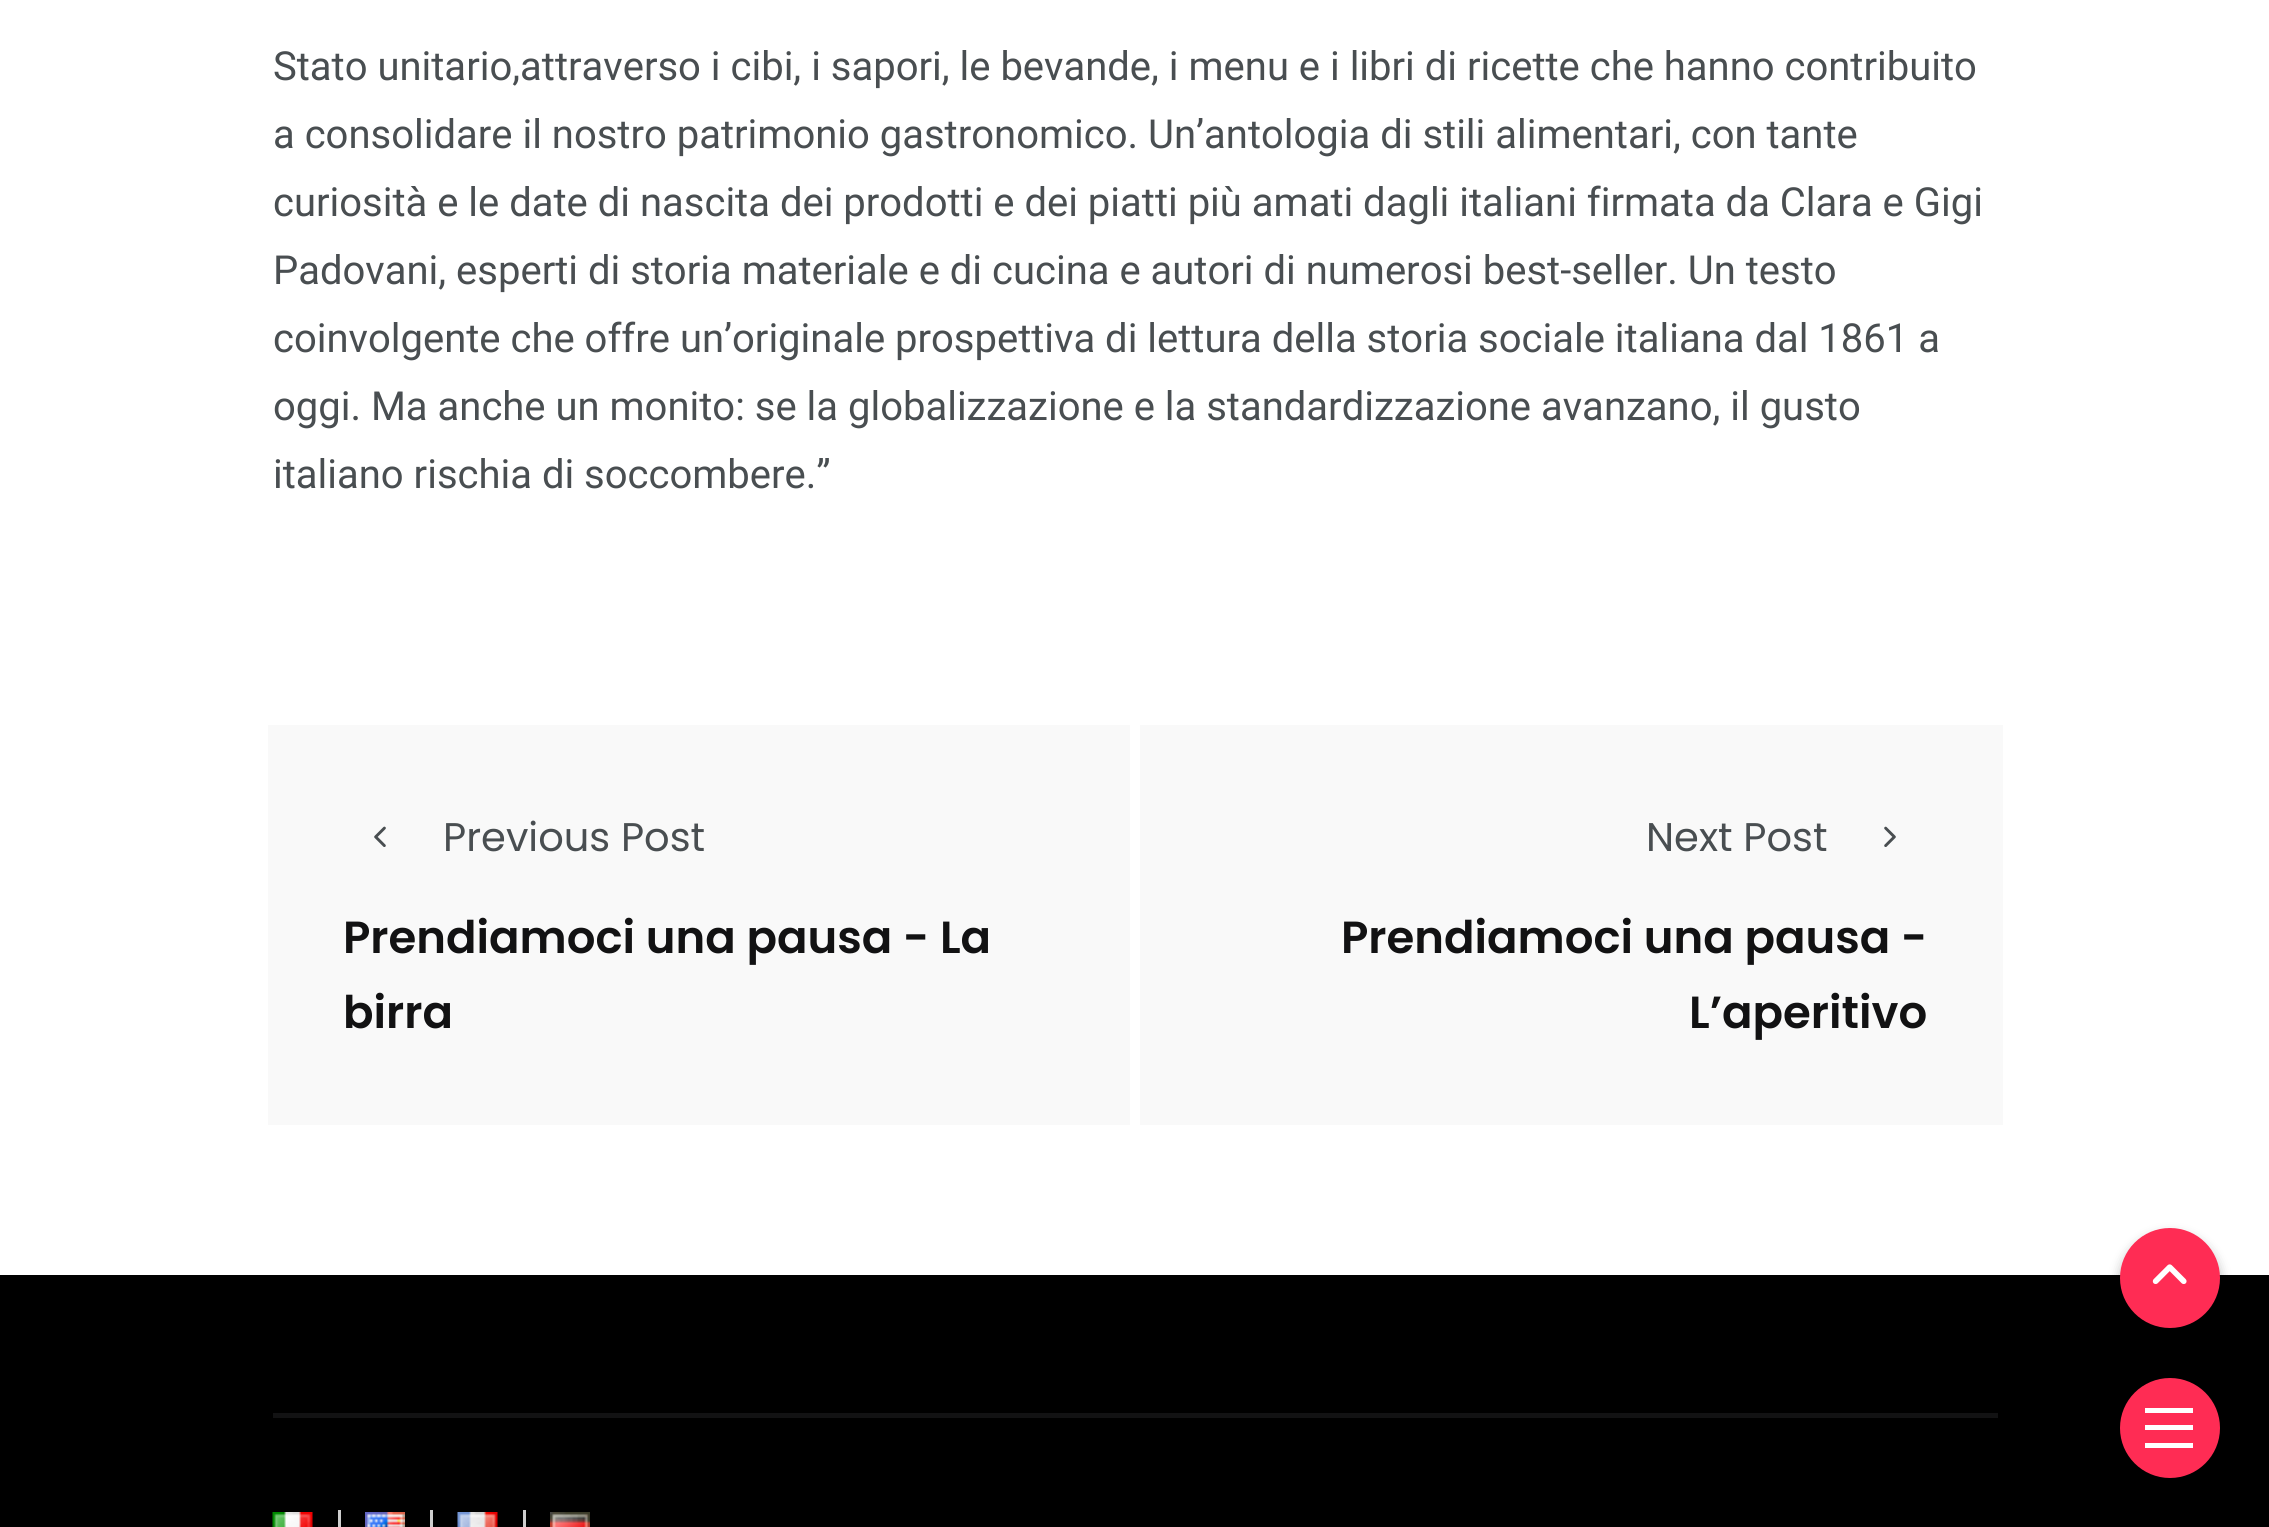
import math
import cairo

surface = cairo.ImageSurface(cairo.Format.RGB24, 2269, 1527)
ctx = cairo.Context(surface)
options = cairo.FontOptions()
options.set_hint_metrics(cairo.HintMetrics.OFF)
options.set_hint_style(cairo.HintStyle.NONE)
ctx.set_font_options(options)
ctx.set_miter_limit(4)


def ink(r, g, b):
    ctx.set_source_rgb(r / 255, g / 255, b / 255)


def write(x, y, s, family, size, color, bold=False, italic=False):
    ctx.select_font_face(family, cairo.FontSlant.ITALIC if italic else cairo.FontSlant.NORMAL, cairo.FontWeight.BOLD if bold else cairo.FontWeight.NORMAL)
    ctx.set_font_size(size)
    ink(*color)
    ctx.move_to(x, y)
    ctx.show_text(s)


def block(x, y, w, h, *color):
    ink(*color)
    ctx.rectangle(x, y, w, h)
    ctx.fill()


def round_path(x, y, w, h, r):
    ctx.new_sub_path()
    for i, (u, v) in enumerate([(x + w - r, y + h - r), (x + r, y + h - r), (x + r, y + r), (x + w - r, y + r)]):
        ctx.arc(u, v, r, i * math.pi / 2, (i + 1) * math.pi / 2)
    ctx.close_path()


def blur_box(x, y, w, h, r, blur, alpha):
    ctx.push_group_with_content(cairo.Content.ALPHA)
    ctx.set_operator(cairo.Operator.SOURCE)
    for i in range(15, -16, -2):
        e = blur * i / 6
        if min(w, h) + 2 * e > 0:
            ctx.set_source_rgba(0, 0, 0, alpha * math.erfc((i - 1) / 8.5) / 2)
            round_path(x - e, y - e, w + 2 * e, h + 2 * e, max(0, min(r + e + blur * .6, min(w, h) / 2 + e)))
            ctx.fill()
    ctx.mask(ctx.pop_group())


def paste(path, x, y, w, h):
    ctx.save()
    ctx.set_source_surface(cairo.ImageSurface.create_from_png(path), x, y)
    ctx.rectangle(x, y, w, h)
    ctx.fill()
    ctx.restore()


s1 = dict(family="Roboto", size=40, color=(73, 78, 81))
s2 = dict(family="Poppins", size=40, color=(73, 78, 81))
s3 = dict(family="Poppins SemiBold", size=45, color=(18, 18, 19))

ink(255, 255, 255)
ctx.paint()
write(273, 80, "Stato unitario,attraverso i cibi, i sapori, le bevande, i menu e i libri di ricette che hanno contribuito", **s1)
write(273, 148, "a consolidare il nostro patrimonio gastronomico. Un’antologia di stili alimentari, con tante", **s1)
write(273, 216, "curiosità e le date di nascita dei prodotti e dei piatti più amati dagli italiani firmata da Clara e Gigi", **s1)
write(273, 284, "Padovani, esperti di storia materiale e di cucina e autori di numerosi best-seller. Un testo", **s1)
write(273, 352, "coinvolgente che offre un’originale prospettiva di lettura della storia sociale italiana dal 1861 a", **s1)
write(273, 420, "oggi. Ma anche un monito: se la globalizzazione e la standardizzazione avanzano, il gusto", **s1)
write(273, 488, "italiano rischia di soccombere.”", **s1)
block(268, 725, 862, 400, 249, 249, 249)
paste("pic1.png", 374, 826, 12, 21)
write(443, 851, "Previous Post", **s2)
write(343, 953, "Prendiamoci una pausa - La", **s3)
write(343, 1028, "birra", **s3)
block(1140, 725, 863, 400, 249, 249, 249)
write(1646, 851, "Next Post", **s2)
paste("pic2.png", 1884, 826, 12, 21)
write(1341, 953, "Prendiamoci una pausa -", **s3)
write(1689, 1028, "L’aperitivo", **s3)
block(0, 1275, 2269, 252, 0, 0, 0)
block(273, 1413, 1725, 5, 18, 18, 19)
paste("pic3.png", 272, 1512, 41, 15)
block(338, 1510, 3, 17, 206, 206, 206)
paste("pic4.png", 365, 1512, 40, 15)
block(430, 1510, 3, 17, 206, 206, 206)
paste("pic5.png", 457, 1512, 41, 15)
block(523, 1510, 3, 17, 206, 206, 206)
paste("pic6.png", 550, 1512, 40, 15)
ink(255, 44, 84)
ctx.arc(2170, 1428, 50, 0, 2 * math.pi)
ctx.fill()
block(2145, 1408, 48, 5, 255, 255, 255)
block(2145, 1425, 48, 5, 255, 255, 255)
block(2145, 1443, 48, 5, 255, 255, 255)
ink(0, 0, 0)
blur_box(2120, 1235, 100, 100, 50, 6, 0.3)
ink(255, 44, 84)
ctx.arc(2170, 1278, 50, 0, 2 * math.pi)
ctx.fill()
paste("pic7.png", 2152, 1264, 35, 20)
surface.write_to_png("screenshot.png")
